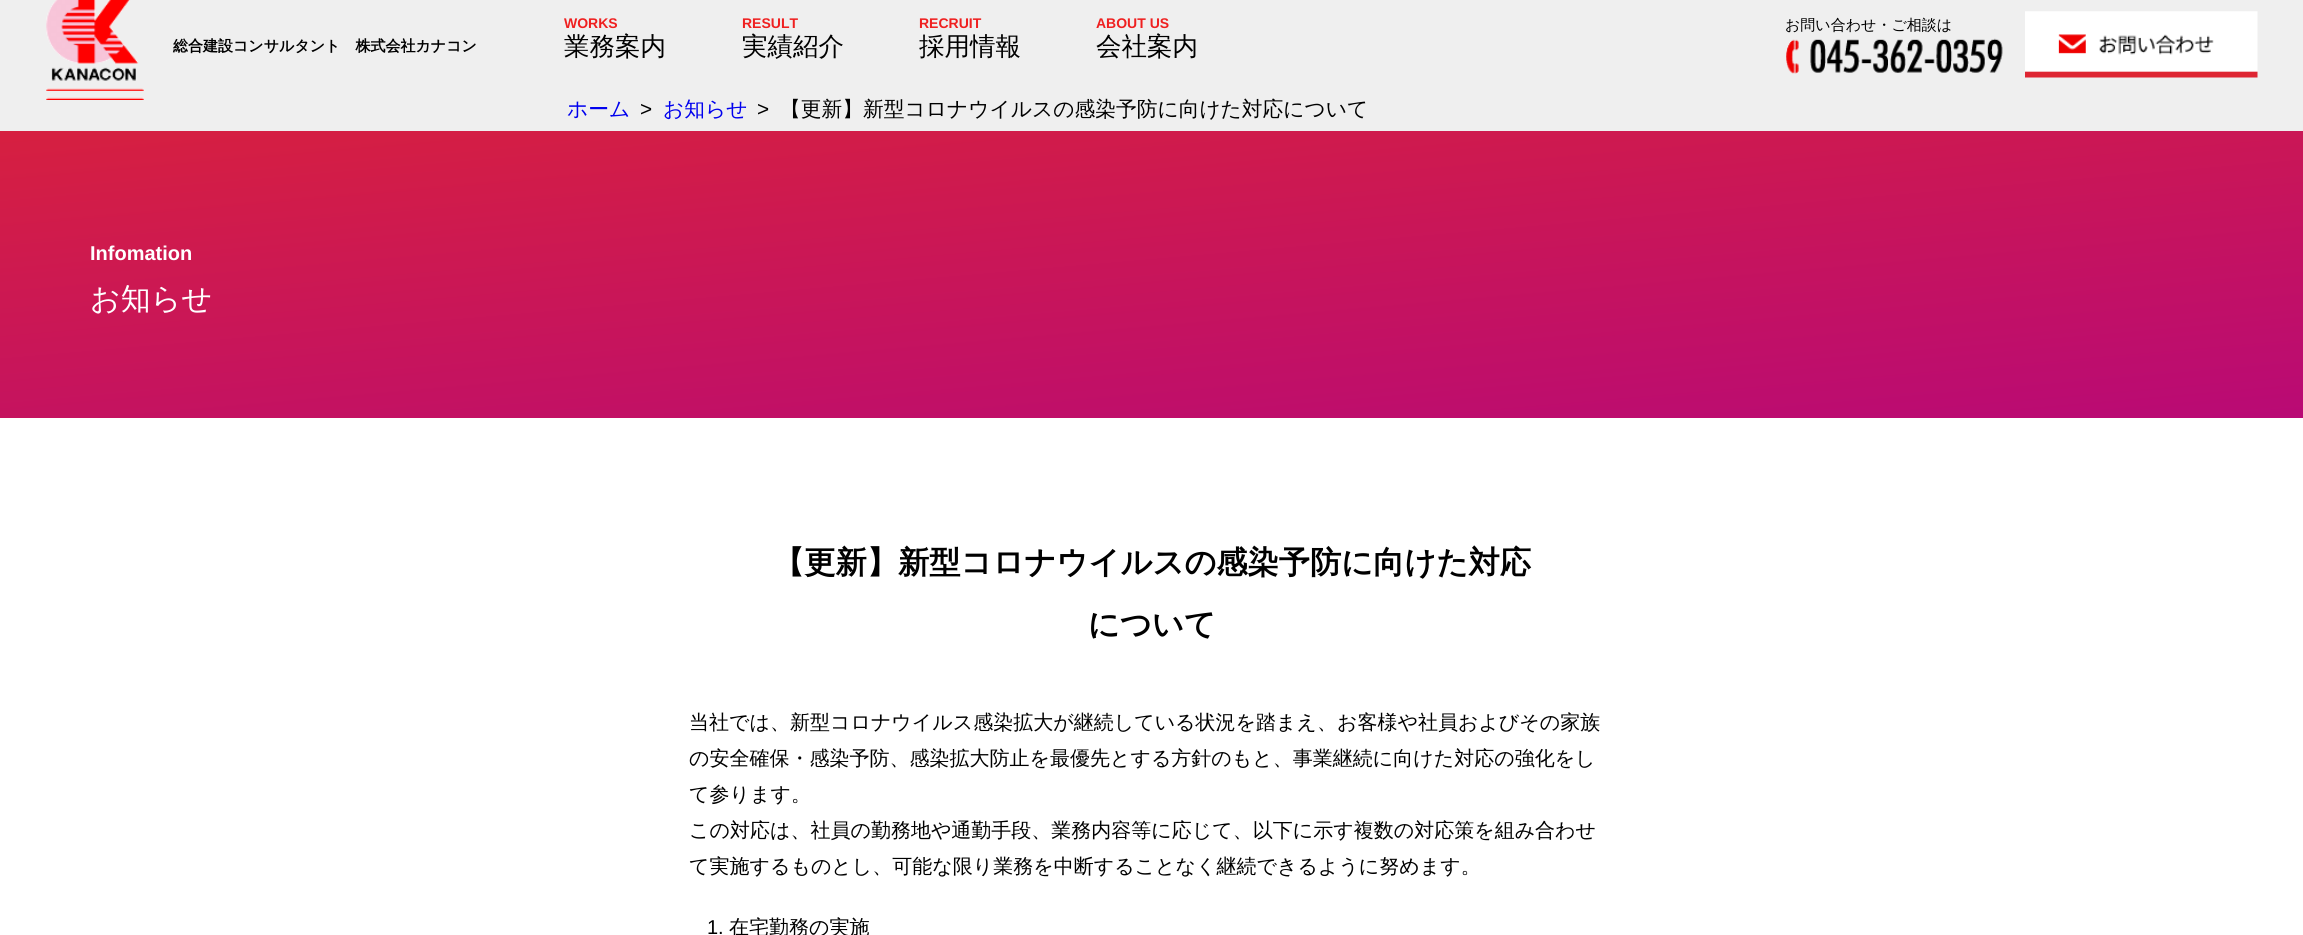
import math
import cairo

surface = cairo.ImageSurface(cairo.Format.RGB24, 2303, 935)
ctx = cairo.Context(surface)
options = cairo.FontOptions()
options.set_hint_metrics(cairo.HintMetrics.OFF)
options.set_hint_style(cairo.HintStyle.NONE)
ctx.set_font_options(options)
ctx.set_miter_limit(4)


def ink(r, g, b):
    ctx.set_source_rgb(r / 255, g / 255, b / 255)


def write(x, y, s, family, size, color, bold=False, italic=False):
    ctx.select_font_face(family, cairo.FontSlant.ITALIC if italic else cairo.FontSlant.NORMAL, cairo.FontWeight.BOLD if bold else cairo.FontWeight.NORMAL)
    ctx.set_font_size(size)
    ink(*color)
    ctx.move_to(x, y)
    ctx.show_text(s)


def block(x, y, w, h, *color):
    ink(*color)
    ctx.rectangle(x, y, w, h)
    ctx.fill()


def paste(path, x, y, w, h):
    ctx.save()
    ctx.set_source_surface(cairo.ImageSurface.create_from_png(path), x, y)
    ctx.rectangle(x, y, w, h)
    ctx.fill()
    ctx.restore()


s1 = dict(family="WenQuanYi Zen Hei", size=15, color=(0, 0, 0), bold=True)
s2 = dict(family="Liberation Sans", size=14, color=(239, 32, 32), bold=True)
s3 = dict(family="WenQuanYi Zen Hei Medium", size=25.5, color=(0, 0, 0))
s4 = dict(family="WenQuanYi Zen Hei Medium", size=15, color=(0, 0, 0))
s5 = dict(family="WenQuanYi Zen Hei Medium", size=20.75, color=(0, 0, 238))
s6 = dict(family="Liberation Sans", size=20.75, color=(0, 0, 0))
s7 = dict(family="WenQuanYi Zen Hei Medium", size=20.75, color=(0, 0, 0))
s8 = dict(family="Liberation Sans", size=20, color=(255, 255, 255), bold=True)
s9 = dict(family="WenQuanYi Zen Hei Medium", size=30, color=(255, 255, 255))
s10 = dict(family="WenQuanYi Zen Hei", size=31.25, color=(0, 0, 0), bold=True)
s11 = dict(family="WenQuanYi Zen Hei Medium", size=20, color=(0, 0, 0))
s12 = dict(family="Liberation Sans", size=20, color=(0, 0, 0))

ink(255, 255, 255)
ctx.paint()
block(0, 0, 2303, 131, 239, 239, 239)
paste("pic1.png", 46, 0, 98, 100)
write(173, 51, "総合建設コンサルタント　株式会社カナコン", **s1)
write(564, 28, "WORKS", **s2)
write(564, 55, "業務案内", **s3)
write(742, 28, "RESULT", **s2)
write(742, 55, "実績紹介", **s3)
write(919, 28, "RECRUIT", **s2)
write(919, 55, "採用情報", **s3)
write(1096, 28, "ABOUT US", **s2)
write(1096, 55, "会社案内", **s3)
write(1785, 30, "お問い合わせ・ご相談は", **s4)
paste("pic2.png", 1786, 38, 217, 36)
paste("pic3.png", 2025, 11, 233, 67)
write(567, 116, "ホーム", **s5)
write(640, 116, ">", **s6)
write(663, 116, "お知らせ", **s5)
write(757, 116, ">", **s6)
write(780, 116, "【更新】新型コロナウイルスの感染予防に向けた対応について", **s7)
gradient = cairo.LinearGradient(1122, -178, 1182, 516)
gradient.add_color_stop_rgba(0, 0.89, 0.161, 0.161, 1)
gradient.add_color_stop_rgba(1, 0.725, 0.039, 0.459, 1)
ctx.set_source(gradient)
ctx.rectangle(0, 131, 2303, 287)
ctx.fill()
write(90, 260, "Infomation", **s8)
write(90, 309, "お知らせ", **s9)
write(773, 573, "【更新】新型コロナウイルスの感染予防に向けた対応", **s10)
write(1088, 635, "について", **s10)
write(689, 729, "当社では、新型コロナウイルス感染拡大が継続している状況を踏まえ、お客様や社員およびその家族", **s11)
write(689, 765, "の安全確保・感染予防、感染拡大防止を最優先とする方針のもと、事業継続に向けた対応の強化をし", **s11)
write(689, 801, "て参ります。", **s11)
write(689, 837, "この対応は、社員の勤務地や通勤手段、業務内容等に応じて、以下に示す複数の対応策を組み合わせ", **s11)
write(689, 873, "て実施するものとし、可能な限り業務を中断することなく継続できるように努めます。", **s11)
write(707, 934, "1.", **s12)
write(729, 934, "在宅勤務の実施", **s11)
surface.write_to_png("screenshot.png")
